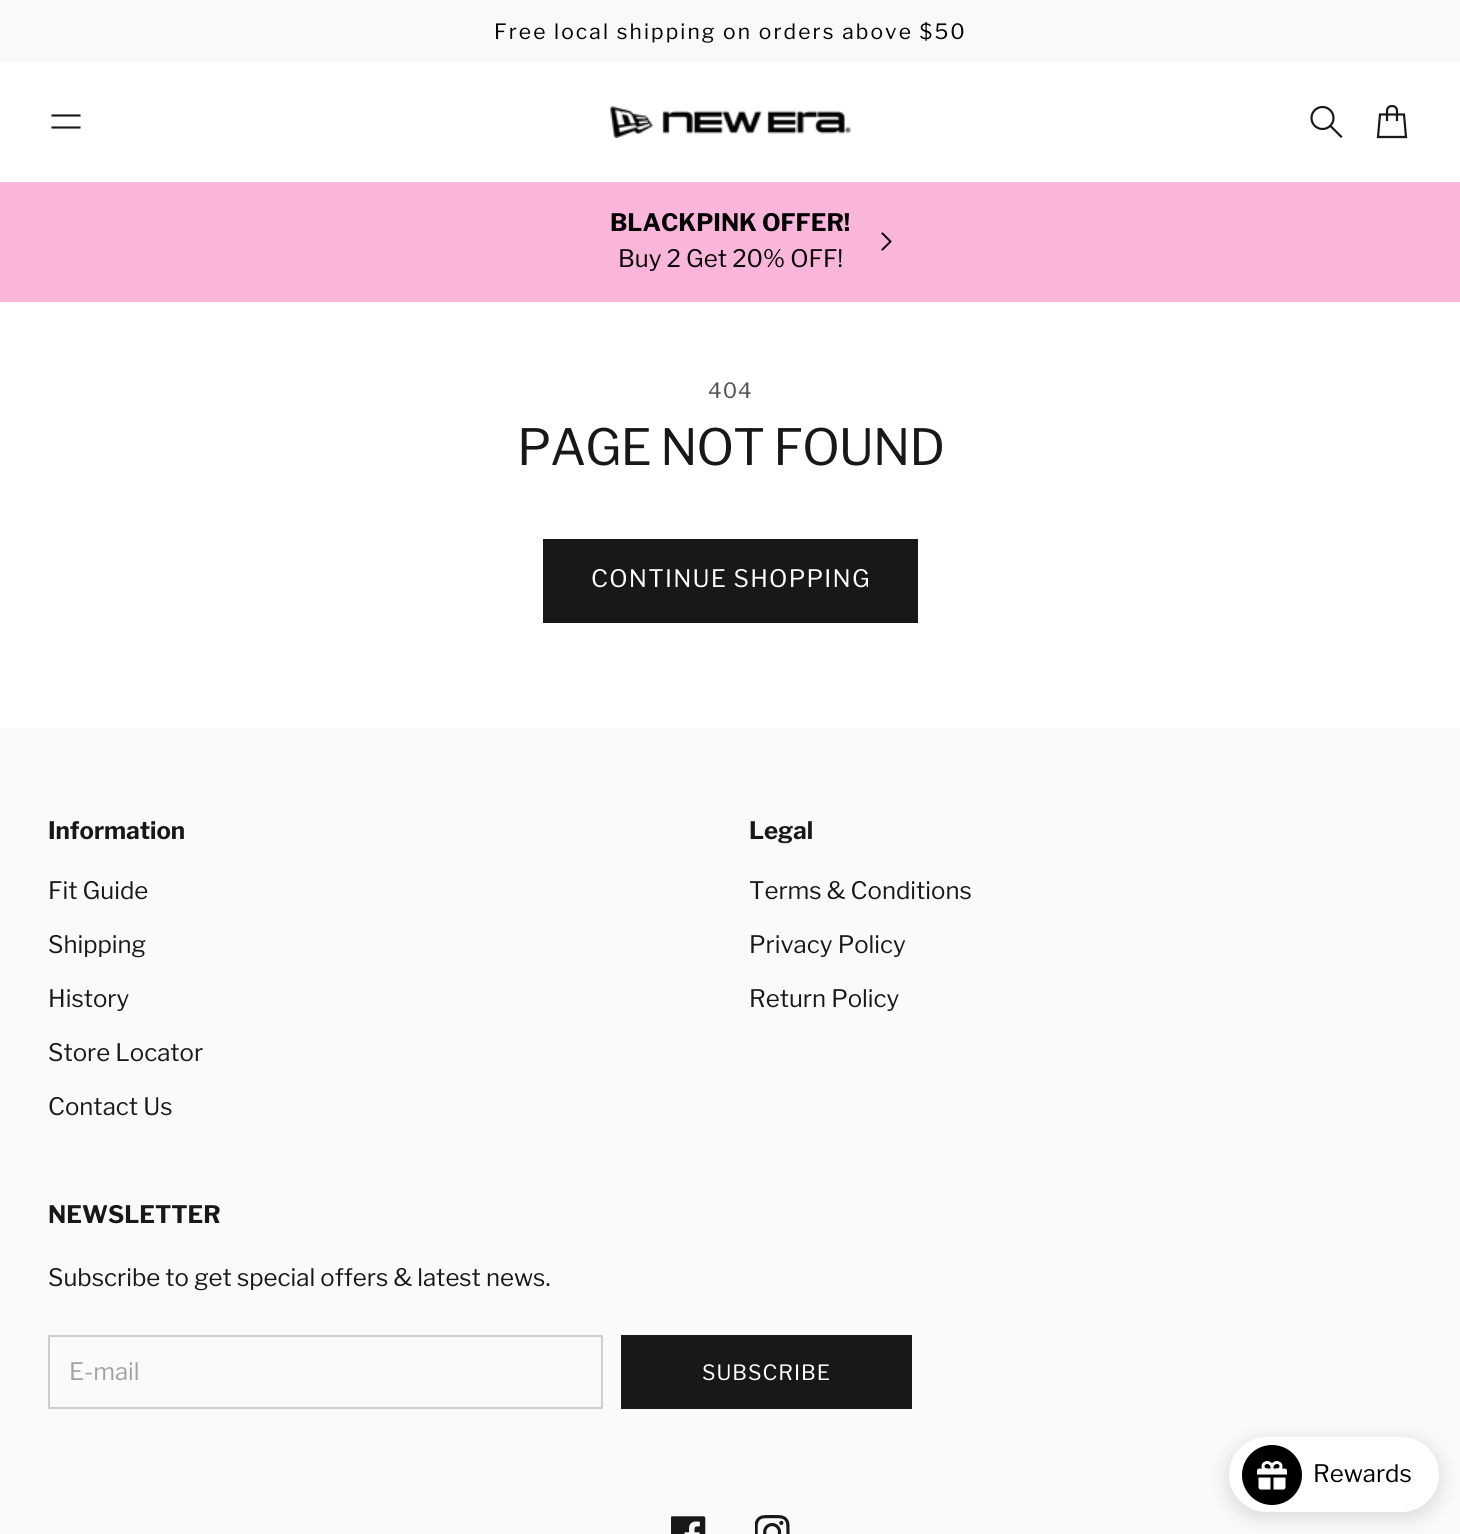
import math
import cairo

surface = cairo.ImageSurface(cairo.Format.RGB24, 1460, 1534)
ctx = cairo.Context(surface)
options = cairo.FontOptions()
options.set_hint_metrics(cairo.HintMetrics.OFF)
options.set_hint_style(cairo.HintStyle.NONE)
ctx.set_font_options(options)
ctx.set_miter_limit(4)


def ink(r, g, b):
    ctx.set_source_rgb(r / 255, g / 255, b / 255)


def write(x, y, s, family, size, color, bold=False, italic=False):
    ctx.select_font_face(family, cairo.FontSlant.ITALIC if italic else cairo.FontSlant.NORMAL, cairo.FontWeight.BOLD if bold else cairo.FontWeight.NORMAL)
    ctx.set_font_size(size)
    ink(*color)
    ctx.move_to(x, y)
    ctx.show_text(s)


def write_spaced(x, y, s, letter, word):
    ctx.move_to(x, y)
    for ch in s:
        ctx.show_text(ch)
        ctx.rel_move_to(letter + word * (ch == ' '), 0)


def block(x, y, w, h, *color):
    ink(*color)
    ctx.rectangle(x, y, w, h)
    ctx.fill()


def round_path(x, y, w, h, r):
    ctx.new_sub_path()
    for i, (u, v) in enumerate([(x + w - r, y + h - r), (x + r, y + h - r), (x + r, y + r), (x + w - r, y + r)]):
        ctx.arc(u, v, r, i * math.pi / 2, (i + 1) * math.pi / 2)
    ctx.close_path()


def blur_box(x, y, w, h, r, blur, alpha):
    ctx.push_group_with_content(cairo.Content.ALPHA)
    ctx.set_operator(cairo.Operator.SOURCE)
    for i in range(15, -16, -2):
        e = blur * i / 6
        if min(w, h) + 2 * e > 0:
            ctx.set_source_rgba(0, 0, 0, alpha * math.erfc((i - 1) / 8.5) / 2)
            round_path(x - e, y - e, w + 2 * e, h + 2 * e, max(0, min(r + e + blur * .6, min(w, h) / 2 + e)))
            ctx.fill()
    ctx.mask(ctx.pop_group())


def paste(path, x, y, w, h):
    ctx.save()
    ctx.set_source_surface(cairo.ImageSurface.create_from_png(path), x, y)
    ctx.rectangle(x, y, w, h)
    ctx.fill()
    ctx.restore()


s1 = dict(family="Libre Franklin", size=24, color=(0, 0, 0), bold=True)
s2 = dict(family="Libre Franklin", size=24, color=(0, 0, 0))
s3 = dict(family="Libre Franklin", size=24, color=(24, 24, 27), bold=True)
s4 = dict(family="Libre Franklin", size=24, color=(24, 24, 27))
s5 = dict(family="Libre Franklin", size=24, color=(163, 163, 163))

ink(255, 255, 255)
ctx.paint()
block(0, 0, 1460, 62, 249, 249, 249)
ctx.select_font_face("Libre Franklin")
ctx.set_font_size(21)
ink(0, 0, 0)
write_spaced(494, 39, "Free local shipping on orders above $50", 2.1, 0)
ctx.new_path()
ctx.move_to(79.5, 127.5)
ctx.line_to(52.5, 127.5)
ctx.move_to(79.5, 115.5)
ctx.line_to(52.5, 115.5)
ink(24, 24, 27)
ctx.set_line_width(2.1)
ctx.set_line_cap(cairo.LineCap.SQUARE)
ctx.stroke()
paste("pic1.png", 610, 106, 241, 32)
ctx.new_path()
ctx.move_to(1341, 136.5)
ctx.line_to(1330.5, 126)
ctx.set_line_width(2.2)
ctx.stroke()
ctx.arc(1322.5, 118, 11, 0, 2 * math.pi)
ctx.set_line_cap(cairo.LineCap.BUTT)
ctx.stroke()
ctx.new_path()
ctx.move_to(1387, 120)
ctx.line_to(1387, 111)
ctx.curve_to(1387, 108, 1389, 106, 1392, 106)
ctx.curve_to(1395, 106, 1397, 108, 1397, 111)
ctx.line_to(1397, 120)
ctx.move_to(1378, 137)
ctx.line_to(1406, 137)
ctx.line_to(1404, 114.5)
ctx.line_to(1380, 114.5)
ctx.close_path()
ctx.set_line_cap(cairo.LineCap.SQUARE)
ctx.stroke()
block(0, 182, 1460, 120, 250, 181, 219)
write(610, 231, "BLACKPINK OFFER!", **s1)
write(618, 267, "Buy 2 Get 20% OFF!", **s2)
ctx.new_path()
ctx.move_to(882.5, 249.5)
ctx.line_to(890.5, 241.5)
ctx.line_to(882.5, 233.5)
ctx.set_line_width(1.9)
ctx.stroke()
ctx.set_font_size(21)
ink(82, 82, 84)
write_spaced(708, 398, "404", 1, 0)
ctx.set_font_size(49.75)
ink(24, 24, 27)
write_spaced(517, 465, "PAGE NOT FOUND", -1.25, 0)
block(543, 539, 375, 84, 24, 24, 27)
ctx.set_font_size(24)
ink(255, 255, 255)
write_spaced(591, 587, "CONTINUE SHOPPING", 1.25, 0)
block(0, 728, 1460, 806, 250, 250, 250)
write(48, 839, "Information", **s3)
write(48, 899, "Fit Guide", **s4)
write(48, 953, "Shipping", **s4)
write(48, 1007, "History", **s4)
write(48, 1061, "Store Locator", **s4)
write(48, 1115, "Contact Us", **s4)
write(749, 839, "Legal", **s3)
write(749, 899, "Terms & Conditions", **s4)
write(749, 953, "Privacy Policy", **s4)
write(749, 1007, "Return Policy", **s4)
write(48, 1223, "NEWSLETTER", **s3)
write(48, 1286, "Subscribe to get special offers & latest news.", **s4)
ctx.rectangle(49, 1336, 553, 72)
ink(205, 205, 205)
ctx.set_line_width(2)
ctx.set_line_cap(cairo.LineCap.BUTT)
ctx.stroke()
write(69, 1380, "E-mail", **s5)
block(621, 1335, 291, 74, 24, 24, 27)
ctx.set_font_size(21)
ink(255, 255, 255)
write_spaced(702, 1380, "SUBSCRIBE", 1, 0)
paste("pic2.png", 671, 1516, 35, 18)
paste("pic3.png", 755, 1515, 35, 19)
ink(17, 34, 51)
blur_box(1229, 1442, 210, 75, 37.5, 10.5, 0.16)
ink(255, 255, 255)
round_path(1229, 1437, 210, 75, 37.5)
ctx.fill()
ink(0, 0, 0)
ctx.arc(1272, 1475, 30, 0, 2 * math.pi)
ctx.fill()
paste("pic4.png", 1257, 1461, 30, 29)
write(1313, 1482, "Rewards", **s2)
surface.write_to_png("screenshot.png")
